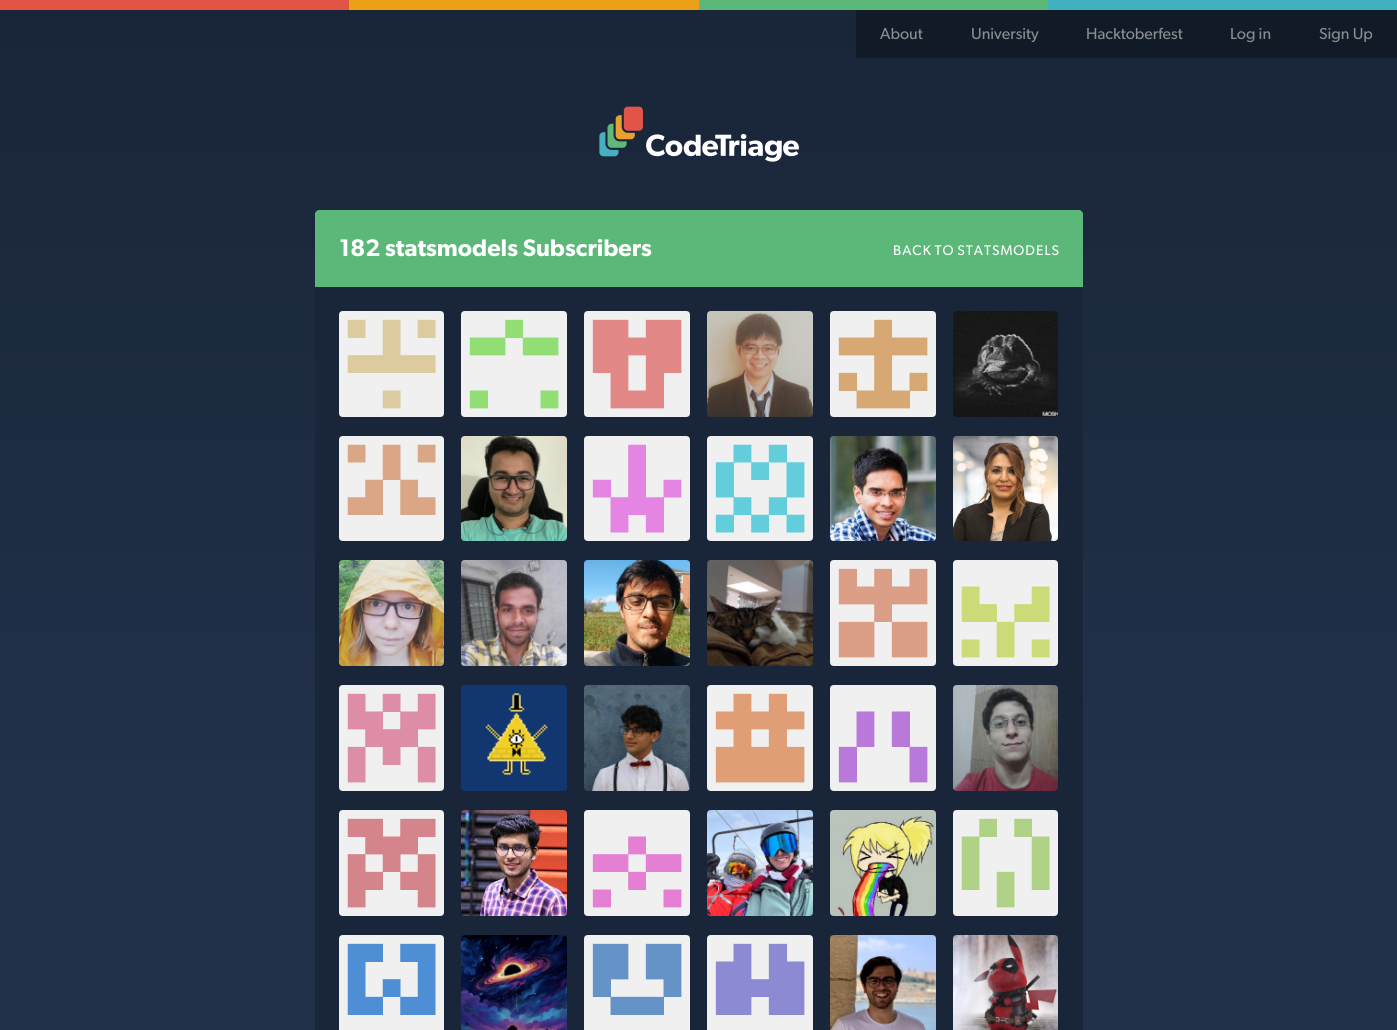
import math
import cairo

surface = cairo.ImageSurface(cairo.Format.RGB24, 1397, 1030)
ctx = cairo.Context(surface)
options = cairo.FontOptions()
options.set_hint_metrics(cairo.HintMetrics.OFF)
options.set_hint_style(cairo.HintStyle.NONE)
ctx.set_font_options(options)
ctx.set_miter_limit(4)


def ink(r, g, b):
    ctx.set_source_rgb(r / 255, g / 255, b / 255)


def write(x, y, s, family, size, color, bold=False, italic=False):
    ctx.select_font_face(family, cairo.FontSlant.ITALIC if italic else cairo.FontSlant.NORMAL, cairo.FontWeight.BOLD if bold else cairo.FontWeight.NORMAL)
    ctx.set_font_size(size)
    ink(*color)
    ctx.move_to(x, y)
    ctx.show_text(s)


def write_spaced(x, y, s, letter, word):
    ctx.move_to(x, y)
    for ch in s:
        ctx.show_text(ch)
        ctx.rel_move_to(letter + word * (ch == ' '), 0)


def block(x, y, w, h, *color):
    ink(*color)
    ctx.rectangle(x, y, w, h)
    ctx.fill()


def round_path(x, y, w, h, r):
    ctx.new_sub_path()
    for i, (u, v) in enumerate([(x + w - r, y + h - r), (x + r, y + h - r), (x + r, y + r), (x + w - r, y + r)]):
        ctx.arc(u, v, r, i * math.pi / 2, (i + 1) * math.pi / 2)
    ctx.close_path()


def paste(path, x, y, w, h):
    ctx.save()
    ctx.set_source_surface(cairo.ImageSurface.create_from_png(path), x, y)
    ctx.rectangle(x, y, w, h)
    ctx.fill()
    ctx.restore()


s1 = dict(family="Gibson", size=16, color=(136, 141, 147))
s2 = dict(family="Gibson SemiBold", size=24, color=(255, 255, 255))

ink(255, 255, 255)
ctx.paint()
gradient = cairo.LinearGradient(698, 0, 699, 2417)
gradient.add_color_stop_rgba(0, 0.098, 0.145, 0.22, 1)
gradient.add_color_stop_rgba(0.33, 0.129, 0.192, 0.29, 1)
ctx.set_source(gradient)
ctx.rectangle(0, 10, 1397, 1020)
ctx.fill()
block(0, 0, 349, 10, 226, 84, 67)
block(349, 0, 350, 10, 235, 161, 23)
block(699, 0, 349, 10, 91, 184, 120)
block(1048, 0, 349, 10, 65, 176, 191)
block(856, 10, 541, 48, 17, 26, 39)
write(880, 39, "About", **s1)
write(971, 39, "University", **s1)
write(1086, 39, "Hacktoberfest", **s1)
write(1230, 39, "Log in", **s1)
write(1319, 39, "Sign Up", **s1)
paste("pic1.png", 599, 106, 200, 56)
ink(25, 37, 56)
round_path(315, 210, 768, 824, 4)
ctx.fill()
ink(91, 184, 120)
ctx.new_path()
ctx.move_to(319, 210)
ctx.line_to(1079, 210)
ctx.curve_to(1081, 210, 1083, 212, 1083, 214)
ctx.line_to(1083, 287)
ctx.line_to(315, 287)
ctx.line_to(315, 214)
ctx.curve_to(315, 212, 317, 210, 319, 210)
ctx.close_path()
ctx.fill()
write(339, 256, "182 statsmodels Subscribers", **s2)
ctx.select_font_face("Gibson")
ctx.set_font_size(14)
write_spaced(893, 255, "BACK TO STATSMODELS", 1, -1)
paste("pic2.png", 339, 311, 105, 106)
paste("pic3.png", 461, 311, 106, 106)
paste("pic4.png", 584, 311, 106, 106)
paste("pic5.png", 707, 311, 106, 106)
paste("pic6.png", 830, 311, 106, 106)
paste("pic7.png", 953, 311, 105, 106)
paste("pic8.png", 339, 436, 105, 105)
paste("pic9.png", 461, 436, 106, 105)
paste("pic10.png", 584, 436, 106, 105)
paste("pic11.png", 707, 436, 106, 105)
paste("pic12.png", 830, 436, 106, 105)
paste("pic13.png", 953, 436, 105, 105)
paste("pic14.png", 339, 560, 105, 106)
paste("pic15.png", 461, 560, 106, 106)
paste("pic16.png", 584, 560, 106, 106)
paste("pic17.png", 707, 560, 106, 106)
paste("pic18.png", 830, 560, 106, 106)
paste("pic19.png", 953, 560, 105, 106)
paste("pic20.png", 339, 685, 105, 106)
paste("pic21.png", 461, 685, 106, 106)
paste("pic22.png", 584, 685, 106, 106)
paste("pic23.png", 707, 685, 106, 106)
paste("pic24.png", 830, 685, 106, 106)
paste("pic25.png", 953, 685, 105, 106)
paste("pic26.png", 339, 810, 105, 106)
paste("pic27.png", 461, 810, 106, 106)
paste("pic28.png", 584, 810, 106, 106)
paste("pic29.png", 707, 810, 106, 106)
paste("pic30.png", 830, 810, 106, 106)
paste("pic31.png", 953, 810, 105, 106)
paste("pic32.png", 339, 935, 105, 95)
paste("pic33.png", 461, 935, 106, 95)
paste("pic34.png", 584, 935, 106, 95)
paste("pic35.png", 707, 935, 106, 95)
paste("pic36.png", 830, 935, 106, 95)
paste("pic37.png", 953, 935, 105, 95)
surface.write_to_png("screenshot.png")
